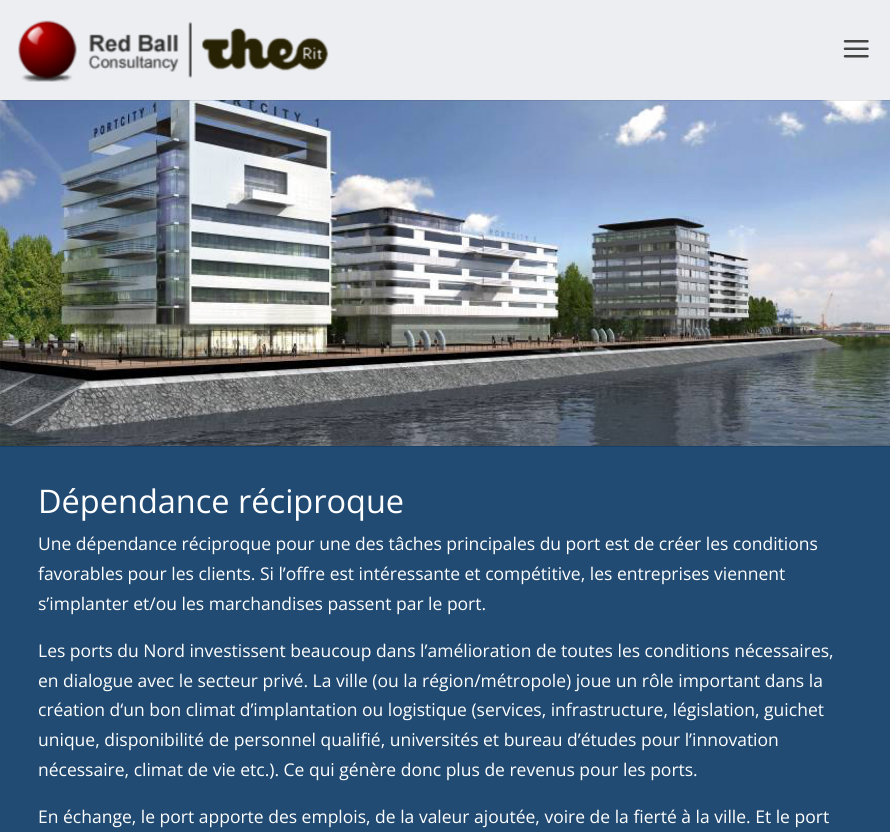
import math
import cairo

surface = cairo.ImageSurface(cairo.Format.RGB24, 890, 832)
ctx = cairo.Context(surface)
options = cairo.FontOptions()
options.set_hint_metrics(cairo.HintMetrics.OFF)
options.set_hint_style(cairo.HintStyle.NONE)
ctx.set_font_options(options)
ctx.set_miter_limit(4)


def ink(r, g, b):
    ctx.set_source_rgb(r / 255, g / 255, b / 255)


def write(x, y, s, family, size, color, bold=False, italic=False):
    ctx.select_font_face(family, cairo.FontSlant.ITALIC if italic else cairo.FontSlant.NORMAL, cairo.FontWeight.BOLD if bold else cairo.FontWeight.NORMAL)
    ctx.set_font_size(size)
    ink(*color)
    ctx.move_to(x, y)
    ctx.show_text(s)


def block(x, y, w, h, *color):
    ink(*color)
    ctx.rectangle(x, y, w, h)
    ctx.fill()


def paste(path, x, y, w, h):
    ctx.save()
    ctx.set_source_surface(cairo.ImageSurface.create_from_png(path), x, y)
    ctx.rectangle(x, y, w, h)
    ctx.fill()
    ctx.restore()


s1 = dict(family="Open Sans", size=32.5, color=(255, 255, 255))
s2 = dict(family="Open Sans", size=17.5, color=(255, 255, 255))

ink(255, 255, 255)
ctx.paint()
paste("pic3.png", 0, 100, 890, 347)
ctx.set_source_rgba(0, 0, 0, 0.1)
ctx.rectangle(0, 100, 890, 1)
ctx.fill()
block(0, 0, 890, 100, 237, 238, 242)
paste("pic1.png", 18, 20, 311, 62)
paste("pic2.png", 843, 40, 26, 18)
ctx.set_source_rgba(0.004, 0.192, 0.369, 0.87)
ctx.rectangle(0, 446, 890, 386)
ctx.fill()
write(38, 513, "Dépendance réciproque", **s1)
write(38, 550, "Une dépendance réciproque pour une des tâches principales du port est de créer les conditions", **s2)
write(38, 580, "favorables pour les clients. Si l’offre est intéressante et compétitive, les entreprises viennent", **s2)
write(38, 610, "s’implanter et/ou les marchandises passent par le port.", **s2)
write(38, 657, "Les ports du Nord investissent beaucoup dans l’amélioration de toutes les conditions nécessaires,", **s2)
write(38, 687, "en dialogue avec le secteur privé. La ville (ou la région/métropole) joue un rôle important dans la", **s2)
write(38, 716, "création d‘un bon climat d’implantation ou logistique (services, infrastructure, législation, guichet", **s2)
write(38, 746, "unique, disponibilité de personnel qualifié, universités et bureau d’études pour l’innovation", **s2)
write(38, 776, "nécessaire, climat de vie etc.). Ce qui génère donc plus de revenus pour les ports.", **s2)
write(38, 823, "En échange, le port apporte des emplois, de la valeur ajoutée, voire de la fierté à la ville. Et le port", **s2)
surface.write_to_png("screenshot.png")
